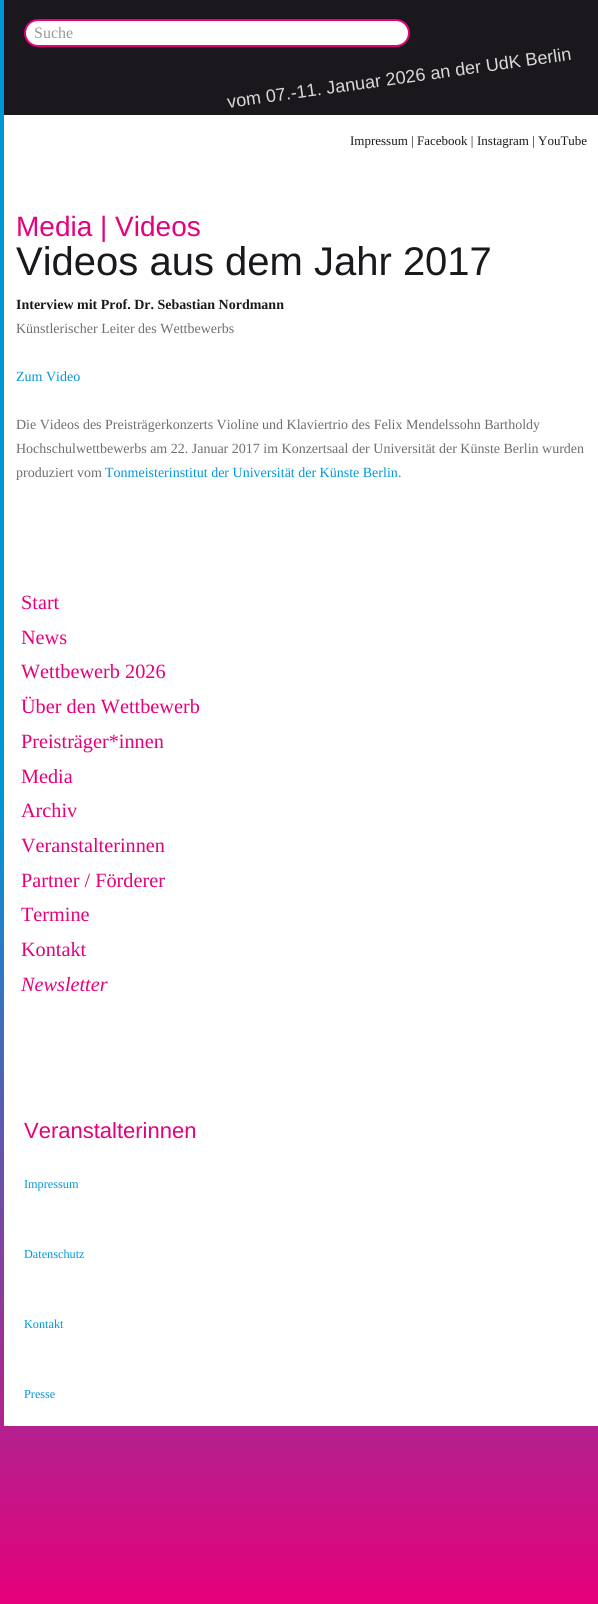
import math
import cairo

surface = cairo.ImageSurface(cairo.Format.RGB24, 598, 1604)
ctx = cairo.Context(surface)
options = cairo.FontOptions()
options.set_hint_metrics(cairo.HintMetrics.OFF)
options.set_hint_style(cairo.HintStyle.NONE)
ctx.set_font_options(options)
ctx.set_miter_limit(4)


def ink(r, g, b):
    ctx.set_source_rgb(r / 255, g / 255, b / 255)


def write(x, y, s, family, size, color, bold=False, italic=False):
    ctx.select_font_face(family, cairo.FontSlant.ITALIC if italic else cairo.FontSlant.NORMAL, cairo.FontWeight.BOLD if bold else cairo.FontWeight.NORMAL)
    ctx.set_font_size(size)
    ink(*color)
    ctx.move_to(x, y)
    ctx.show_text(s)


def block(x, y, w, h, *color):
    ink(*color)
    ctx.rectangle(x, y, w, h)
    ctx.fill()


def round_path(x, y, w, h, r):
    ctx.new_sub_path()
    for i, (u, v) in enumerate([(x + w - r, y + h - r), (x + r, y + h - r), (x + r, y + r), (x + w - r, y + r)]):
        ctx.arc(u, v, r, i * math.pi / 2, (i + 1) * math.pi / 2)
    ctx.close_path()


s1 = dict(family="Liberation Serif", size=16, color=(153, 153, 153))
s2 = dict(family="Liberation Sans", size=18, color=(217, 217, 217))
s3 = dict(family="Liberation Serif", size=13, color=(26, 24, 28))
s4 = dict(family="Liberation Sans", size=28, color=(229, 0, 124))
s5 = dict(family="Liberation Sans", size=40, color=(26, 24, 28))
s6 = dict(family="Liberation Serif", size=14, color=(26, 24, 28), bold=True)
s7 = dict(family="Liberation Serif", size=14, color=(110, 110, 110))
s8 = dict(family="Liberation Serif", size=14, color=(0, 151, 216))
s9 = dict(family="Liberation Serif", size=20.25, color=(229, 0, 124))
s10 = dict(family="Liberation Serif", size=20.25, color=(229, 0, 124), italic=True)
s11 = dict(family="Liberation Sans", size=22, color=(229, 0, 124))
s12 = dict(family="Liberation Serif", size=12.25, color=(0, 151, 216))

ink(255, 255, 255)
ctx.paint()
gradient = cairo.LinearGradient(299, 0, 299, 1604)
gradient.add_color_stop_rgba(0.5, 0, 0.588, 0.839, 1)
gradient.add_color_stop_rgba(1, 0.902, 0, 0.478, 1)
ctx.set_source(gradient)
ctx.rectangle(0, 0, 598, 1604)
ctx.fill()
block(4, 115, 594, 1311, 255, 255, 255)
block(4, 0, 594, 115, 26, 24, 28)
ink(255, 255, 255)
round_path(25, 20, 384, 26, 13)
ctx.fill_preserve()
ink(229, 0, 124)
ctx.stroke()
write(34, 38, "Suche", **s1)
ctx.save()
ctx.translate(228, 108)
ctx.rotate(-8 * math.pi / 180)
write(0, 0, "vom 07.-11. Januar 2026 an der UdK Berlin", **s2)
ctx.restore()
write(350, 145, "Impressum |", **s3)
write(417, 145, "Facebook |", **s3)
write(477, 145, "Instagram |", **s3)
write(538, 145, "YouTube", **s3)
write(16, 236, "Media | Videos", **s4)
write(16, 275, "Videos aus dem Jahr 2017", **s5)
write(16, 309, "Interview mit Prof. Dr. Sebastian Nordmann", **s6)
write(16, 333, "Künstlerischer Leiter des Wettbewerbs", **s7)
write(16, 381, "Zum Video", **s8)
write(16, 429, "Die Videos des Preisträgerkonzerts Violine und Klaviertrio des Felix Mendelssohn Bartholdy", **s7)
write(16, 453, "Hochschulwettbewerbs am 22. Januar 2017 im Konzertsaal der Universität der Künste Berlin wurden", **s7)
write(16, 477, "produziert vom", **s7)
write(105, 477, "Tonmeisterinstitut der Universität der Künste Berlin", **s8)
write(398, 477, ".", **s7)
write(21, 609, "Start", **s9)
write(21, 644, "News", **s9)
write(21, 678, "Wettbewerb 2026", **s9)
write(21, 713, "Über den Wettbewerb", **s9)
write(21, 748, "Preisträger*innen", **s9)
write(21, 783, "Media", **s9)
write(21, 817, "Archiv", **s9)
write(21, 852, "Veranstalterinnen", **s9)
write(21, 887, "Partner / Förderer", **s9)
write(21, 921, "Termine", **s9)
write(21, 956, "Kontakt", **s9)
write(21, 991, "Newsletter", **s10)
write(24, 1138, "Veranstalterinnen", **s11)
write(24, 1188, "Impressum", **s12)
write(24, 1258, "Datenschutz", **s12)
write(24, 1328, "Kontakt", **s12)
write(24, 1398, "Presse", **s12)
surface.write_to_png("screenshot.png")
